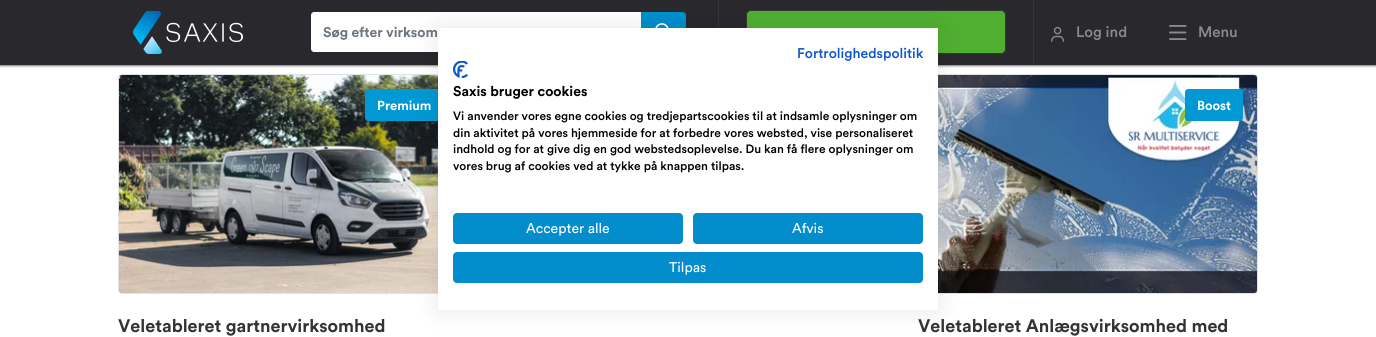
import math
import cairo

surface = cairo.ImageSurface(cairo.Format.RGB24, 1376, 337)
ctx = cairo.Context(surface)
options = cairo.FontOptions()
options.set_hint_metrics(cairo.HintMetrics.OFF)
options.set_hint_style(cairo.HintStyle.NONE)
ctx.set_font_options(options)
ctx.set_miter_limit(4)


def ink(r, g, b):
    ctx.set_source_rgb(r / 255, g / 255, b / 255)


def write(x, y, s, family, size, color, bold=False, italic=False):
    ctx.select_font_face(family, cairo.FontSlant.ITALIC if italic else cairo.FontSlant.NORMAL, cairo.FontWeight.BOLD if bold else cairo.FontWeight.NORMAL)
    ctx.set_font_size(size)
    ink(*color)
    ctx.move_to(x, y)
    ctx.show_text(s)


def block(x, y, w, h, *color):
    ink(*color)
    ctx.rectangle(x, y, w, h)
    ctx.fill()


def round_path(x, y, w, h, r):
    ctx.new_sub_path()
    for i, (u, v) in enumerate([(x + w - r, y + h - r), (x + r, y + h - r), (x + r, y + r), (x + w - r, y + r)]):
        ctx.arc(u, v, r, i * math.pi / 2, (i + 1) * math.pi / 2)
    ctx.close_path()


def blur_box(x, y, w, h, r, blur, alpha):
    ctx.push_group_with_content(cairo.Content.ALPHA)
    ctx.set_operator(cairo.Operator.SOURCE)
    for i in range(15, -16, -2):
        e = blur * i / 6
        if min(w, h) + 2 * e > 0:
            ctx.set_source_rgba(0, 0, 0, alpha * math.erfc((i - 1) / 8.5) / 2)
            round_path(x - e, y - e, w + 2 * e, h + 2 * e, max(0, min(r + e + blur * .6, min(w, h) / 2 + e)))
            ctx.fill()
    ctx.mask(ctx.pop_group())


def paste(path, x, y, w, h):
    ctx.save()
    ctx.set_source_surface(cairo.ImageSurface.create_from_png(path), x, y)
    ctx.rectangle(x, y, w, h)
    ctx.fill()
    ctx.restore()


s1 = dict(family="Circular", size=14, color=(108, 117, 125), bold=True)
s2 = dict(family="Circular Medium", size=15, color=(136, 138, 144))
s3 = dict(family="Circular Medium", size=14, color=(13, 86, 201))
s4 = dict(family="Circular", size=14, color=(0, 0, 0), bold=True)
s5 = dict(family="Circular Medium", size=12, color=(0, 0, 0))
s6 = dict(family="Circular", size=14, color=(255, 255, 255))
s7 = dict(family="Circular", size=13, color=(255, 255, 255), bold=True)
s8 = dict(family="Circular", size=18, color=(51, 51, 51), bold=True)

ink(255, 255, 255)
ctx.paint()
ink(0, 0, 0)
blur_box(0, 0, 1376, 65, 0, 1.5, 1)
block(0, 0, 1376, 65, 40, 40, 45)
paste("pic1.png", 133, 11, 110, 43)
ink(255, 255, 255)
ctx.new_path()
ctx.move_to(314, 12)
ctx.line_to(641, 12)
ctx.line_to(641, 52)
ctx.line_to(314, 52)
ctx.curve_to(312.5, 52, 311, 50.5, 311, 49)
ctx.line_to(311, 15)
ctx.curve_to(311, 13.5, 312.5, 12, 314, 12)
ctx.close_path()
ctx.fill()
write(323, 37, "Søg efter virksom", **s1)
ink(0, 142, 204)
ctx.new_path()
ctx.move_to(641, 12)
ctx.line_to(683, 12)
ctx.curve_to(684.5, 12, 686, 13.5, 686, 15)
ctx.line_to(686, 49)
ctx.curve_to(686, 50.5, 684.5, 52, 683, 52)
ctx.line_to(641, 52)
ctx.close_path()
ctx.fill()
paste("pic2.png", 655, 23, 14, 5)
block(1033, 0, 1, 65, 52, 55, 52)
block(718, 0, 1, 28, 52, 55, 52)
ink(80, 175, 49)
round_path(746.5, 10.5, 259, 43, 4.5)
ctx.fill_preserve()
ink(52, 55, 52)
ctx.set_line_width(1)
ctx.stroke()
paste("pic3.png", 1051, 26, 14, 16)
write(1076, 37, "Log ind", **s2)
paste("pic4.png", 1169, 25, 18, 15)
write(1198, 37, "Menu", **s2)
round_path(118.5, 74.5, 339, 219, 3.5)
ink(222, 226, 230)
ctx.stroke()
paste("pic6.png", 119, 75, 319, 218)
ink(2, 152, 211)
round_path(365, 89, 78, 32, 3)
ctx.fill()
round_path(918.5, 74.5, 339, 219, 3.5)
ink(222, 226, 230)
ctx.stroke()
paste("pic7.png", 938, 75, 319, 218)
ink(0, 0, 0)
blur_box(438, 28, 500, 282, 0, 12, 0.1)
block(438, 28, 500, 282, 255, 255, 255)
write(797, 58, "Fortrolighedspolitik", **s3)
paste("pic5.png", 453, 61, 15, 17)
write(453, 96, "Saxis bruger cookies", **s4)
write(453, 120, "Vi anvender vores egne cookies og tredjepartscookies til at indsamle oplysninger om", **s5)
write(453, 137, "din aktivitet på vores hjemmeside for at forbedre vores websted, vise personaliseret", **s5)
write(453, 153, "indhold og for at give dig en god webstedsoplevelse. Du kan få flere oplysninger om", **s5)
write(453, 170, "vores brug af cookies ved at tykke på knappen tilpas.", **s5)
ink(4, 141, 205)
round_path(453.5, 213.5, 229, 30, 3.5)
ctx.fill_preserve()
ctx.stroke()
write(526, 233, "Accepter alle", **s6)
ink(4, 141, 205)
round_path(693.5, 213.5, 229, 30, 3.5)
ctx.fill_preserve()
ctx.stroke()
write(792, 233, "Afvis", **s6)
ink(4, 141, 205)
round_path(453.5, 252.5, 469, 30, 3.5)
ctx.fill_preserve()
ctx.stroke()
write(669, 272, "Tilpas", **s6)
write(377, 110, "Premium", **s7)
write(118, 332, "Veletableret gartnervirksomhed", **s8)
ink(2, 152, 211)
round_path(1185, 89, 58, 32, 3)
ctx.fill()
write(1197, 110, "Boost", **s7)
write(918, 332, "Veletableret Anlægsvirksomhed med", **s8)
surface.write_to_png("screenshot.png")
